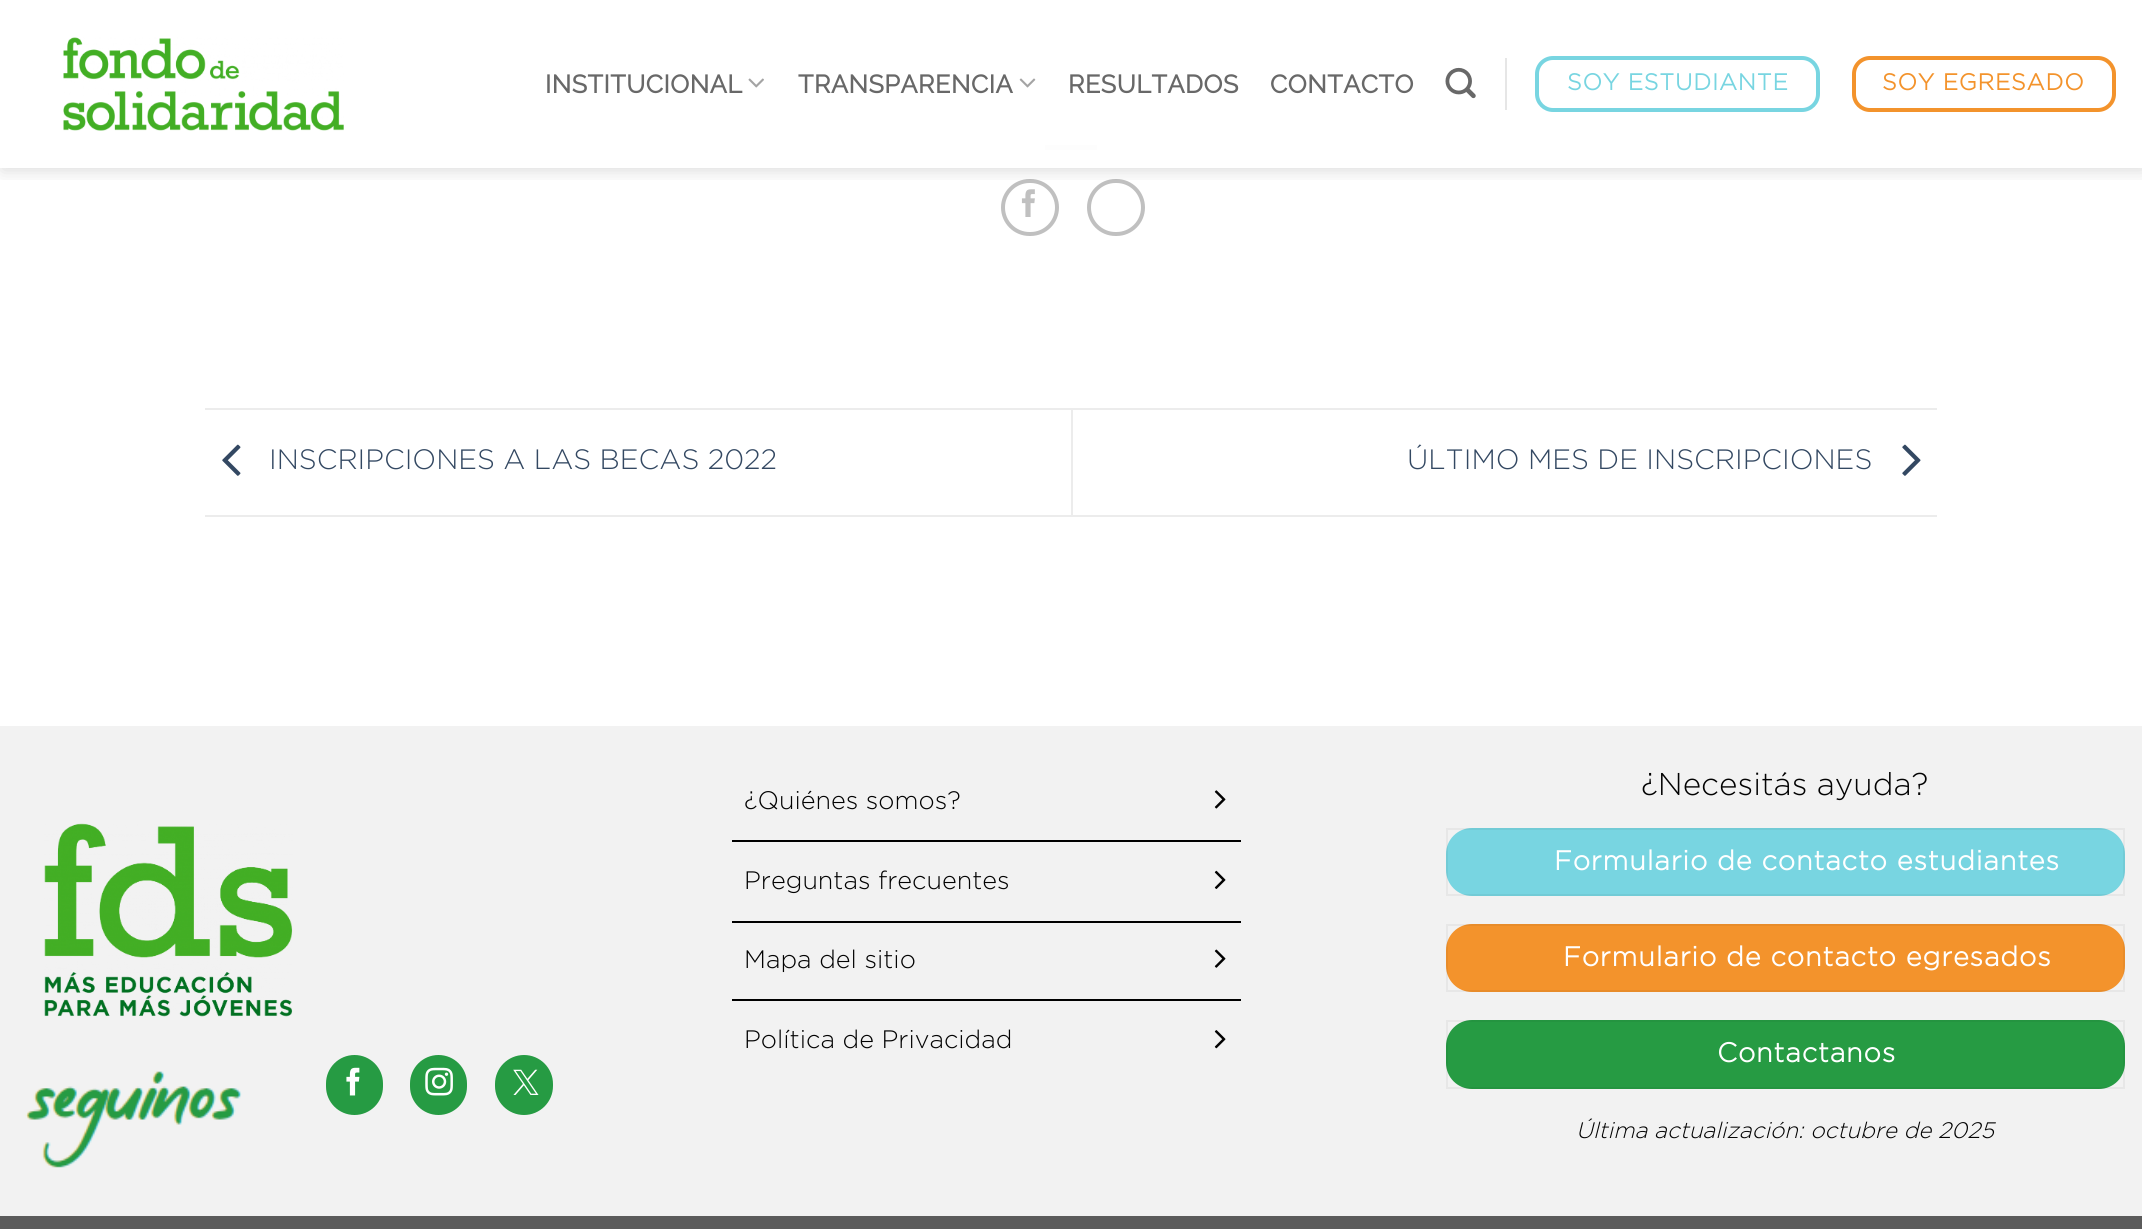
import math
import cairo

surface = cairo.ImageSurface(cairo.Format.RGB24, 2142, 1229)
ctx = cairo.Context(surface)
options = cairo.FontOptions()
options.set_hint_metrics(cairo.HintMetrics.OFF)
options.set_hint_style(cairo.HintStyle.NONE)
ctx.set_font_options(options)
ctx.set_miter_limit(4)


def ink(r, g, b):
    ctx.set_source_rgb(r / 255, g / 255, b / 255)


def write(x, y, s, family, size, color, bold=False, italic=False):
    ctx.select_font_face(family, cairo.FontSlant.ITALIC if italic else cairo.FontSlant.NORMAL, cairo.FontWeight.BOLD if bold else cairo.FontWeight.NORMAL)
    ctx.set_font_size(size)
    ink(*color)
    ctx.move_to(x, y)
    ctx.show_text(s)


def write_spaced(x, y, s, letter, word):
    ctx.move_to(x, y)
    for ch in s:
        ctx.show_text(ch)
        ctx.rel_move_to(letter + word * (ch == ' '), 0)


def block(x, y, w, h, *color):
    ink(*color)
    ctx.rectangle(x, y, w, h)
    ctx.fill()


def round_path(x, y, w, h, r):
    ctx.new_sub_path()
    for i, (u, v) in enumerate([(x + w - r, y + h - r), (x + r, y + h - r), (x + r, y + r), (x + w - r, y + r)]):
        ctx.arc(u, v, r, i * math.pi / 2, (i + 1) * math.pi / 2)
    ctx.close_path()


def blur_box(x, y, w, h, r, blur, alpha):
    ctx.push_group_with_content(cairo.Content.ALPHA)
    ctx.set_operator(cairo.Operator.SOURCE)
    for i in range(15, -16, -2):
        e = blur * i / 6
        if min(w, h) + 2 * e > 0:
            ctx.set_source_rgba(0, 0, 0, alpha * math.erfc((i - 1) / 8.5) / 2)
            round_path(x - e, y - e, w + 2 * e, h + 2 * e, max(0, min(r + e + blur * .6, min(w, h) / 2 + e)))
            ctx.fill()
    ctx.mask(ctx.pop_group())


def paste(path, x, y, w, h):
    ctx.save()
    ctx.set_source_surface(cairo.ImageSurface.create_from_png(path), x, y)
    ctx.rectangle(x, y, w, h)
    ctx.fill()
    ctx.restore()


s1 = dict(family="Gotham Light", size=28, color=(51, 72, 98))
s2 = dict(family="Gotham Light", size=25.25, color=(2, 2, 2))
s3 = dict(family="Gotham Light", size=31.5, color=(2, 2, 2))
s4 = dict(family="Gotham Light", size=22.4, color=(2, 2, 2), italic=True)

ink(255, 255, 255)
ctx.paint()
block(1045, 145, 52, 5, 230, 230, 230)
round_path(1003, 181, 54, 53, 26.5)
ink(192, 192, 192)
ctx.set_line_width(4)
ctx.stroke()
paste("pic5.png", 1021, 189, 14, 28)
round_path(1089, 181, 54, 53, 26.5)
ctx.stroke()
ctx.save()
ctx.rectangle(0, 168, 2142, 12)
ctx.clip()
ink(0, 0, 0)
blur_box(2, 2, 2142, 168, 0, 9, 0.15)
ctx.restore()
ctx.set_source_rgba(1, 1, 1, 0.9)
round_path(0, 0, 2142, 168, 26)
ctx.fill()
paste("pic1.png", 63, 37, 281, 94)
ctx.select_font_face("Raleway", cairo.FontSlant.NORMAL, cairo.FontWeight.BOLD)
ctx.set_font_size(25.25)
ink(104, 104, 104)
write_spaced(545, 93, "INSTITUCIONAL", 0.5, 0)
paste("pic2.png", 748, 78, 16, 10)
write_spaced(798, 93, "TRANSPARENCIA", 0.5, 0)
paste("pic3.png", 1019, 78, 17, 10)
write_spaced(1068, 93, "RESULTADOS", 0.5, 0)
write_spaced(1270, 93, "CONTACTO", 0.5, 0)
paste("pic4.png", 1445, 67, 31, 32)
block(1505, 58, 2, 52, 230, 230, 230)
round_path(1537, 58, 281, 52, 16)
ink(120, 213, 225)
ctx.stroke()
ctx.select_font_face("Gotham", cairo.FontSlant.NORMAL, cairo.FontWeight.BOLD)
ctx.set_font_size(23)
write_spaced(1567, 90, "SOY ESTUDIANTE", 0.75, 0)
round_path(1854, 58, 260, 52, 16)
ink(243, 147, 44)
ctx.stroke()
write_spaced(1882, 90, "SOY EGRESADO", 0.75, 0)
block(205, 408, 1732, 2, 236, 236, 236)
block(205, 515, 1732, 2, 236, 236, 236)
paste("pic6.png", 222, 444, 19, 32)
write(269, 469, "INSCRIPCIONES A LAS BECAS 2022", **s1)
block(1071, 410, 2, 105, 236, 236, 236)
write(1407, 469, "ÚLTIMO MES DE INSCRIPCIONES", **s1)
paste("pic7.png", 1902, 444, 19, 32)
block(0, 726, 2142, 490, 242, 242, 242)
paste("pic8.png", 44, 823, 249, 194)
paste("pic9.png", 25, 1071, 217, 97)
ink(38, 155, 67)
round_path(327, 1056, 55, 58, 27.5)
ctx.fill_preserve()
ctx.set_line_width(2)
ctx.stroke()
paste("pic10.png", 346, 1067, 14, 29)
round_path(411, 1056, 55, 58, 27.5)
ctx.fill_preserve()
ctx.stroke()
paste("pic11.png", 425, 1067, 28, 29)
round_path(496, 1056, 56, 58, 28)
ctx.fill_preserve()
ctx.stroke()
paste("pic12.png", 513, 1069, 26, 26)
block(732, 840, 509, 2, 0, 0, 0)
write(744, 809, "¿Quiénes somos?", **s2)
paste("pic13.png", 1214, 790, 12, 19)
block(732, 921, 509, 2, 0, 0, 0)
write(744, 889, "Preguntas frecuentes", **s2)
paste("pic14.png", 1214, 870, 12, 19)
block(732, 999, 509, 2, 0, 0, 0)
write(744, 968, "Mapa del sitio", **s2)
paste("pic15.png", 1214, 949, 12, 19)
write(744, 1048, "Política de Privacidad", **s2)
paste("pic16.png", 1214, 1030, 12, 19)
write(1641, 795, "¿Necesitás ayuda?", **s3)
ink(120, 213, 225)
round_path(1446, 828, 679, 68, 26)
ctx.fill()
ctx.rectangle(1447, 829, 677, 66)
ctx.set_source_rgba(0, 0, 0, 0.05)
ctx.stroke()
ctx.select_font_face("Gotham", cairo.FontSlant.NORMAL, cairo.FontWeight.BOLD)
ctx.set_font_size(27.2)
ink(255, 255, 255)
write_spaced(1554, 870, "Formulario de contacto estudiantes", 0.8, 0)
ink(243, 147, 44)
round_path(1446, 924, 679, 68, 26)
ctx.fill()
ctx.rectangle(1447, 925, 677, 66)
ctx.set_source_rgba(0, 0, 0, 0.05)
ctx.stroke()
ink(255, 255, 255)
write_spaced(1563, 966, "Formulario de contacto egresados", 0.8, 0)
ink(38, 155, 67)
round_path(1446, 1020, 679, 69, 26)
ctx.fill()
ctx.rectangle(1447, 1021, 677, 67)
ctx.set_source_rgba(0, 0, 0, 0.05)
ctx.stroke()
ink(255, 255, 255)
write_spaced(1717, 1062, "Contactanos", 0.8, 0)
write(1576, 1138, "Última actualización: octubre de 2025", **s4)
block(0, 1216, 2142, 13, 91, 91, 91)
surface.write_to_png("screenshot.png")
